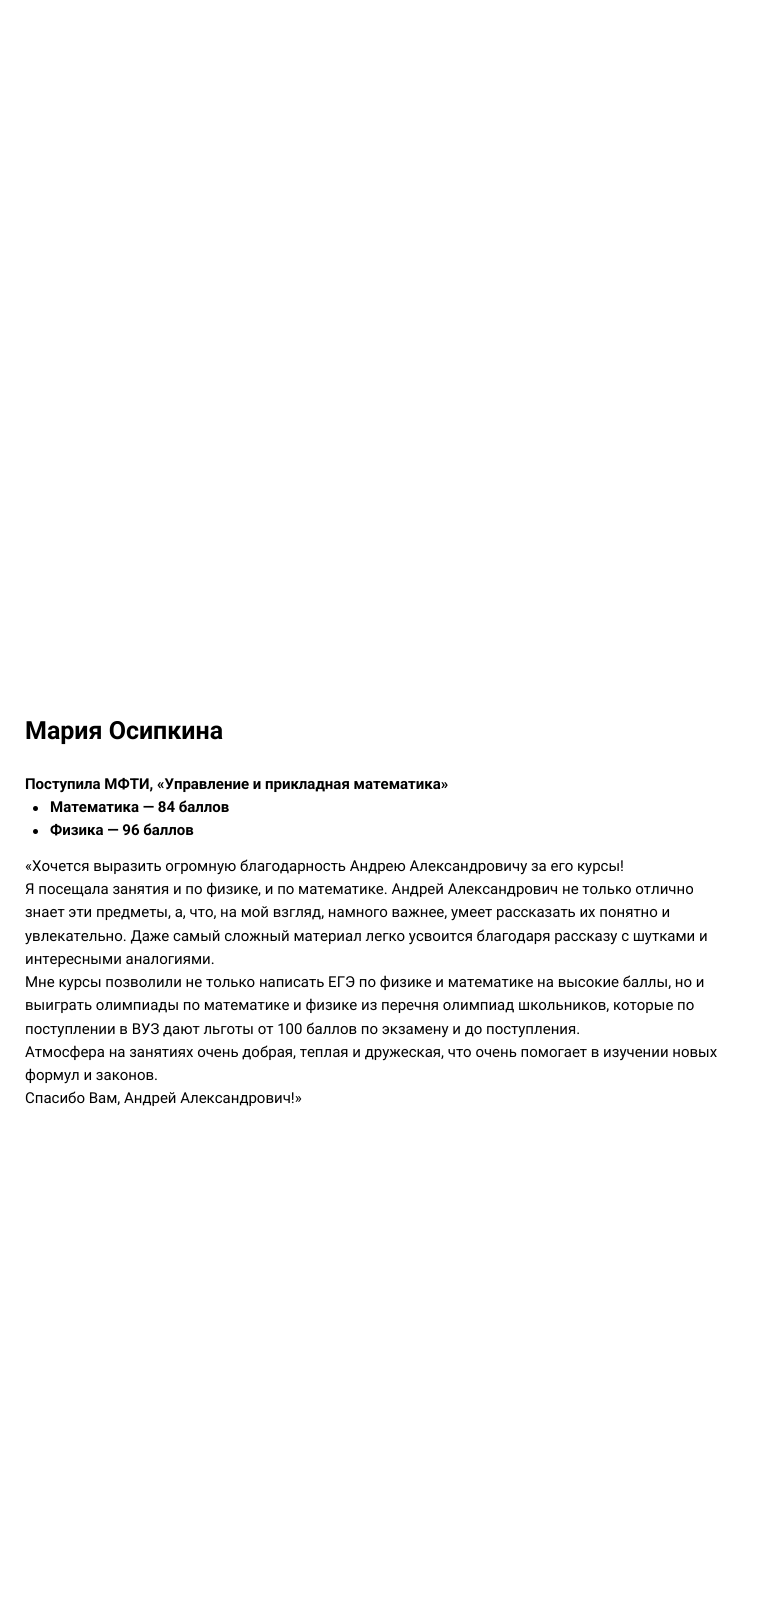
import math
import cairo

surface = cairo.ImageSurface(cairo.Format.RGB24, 760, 1614)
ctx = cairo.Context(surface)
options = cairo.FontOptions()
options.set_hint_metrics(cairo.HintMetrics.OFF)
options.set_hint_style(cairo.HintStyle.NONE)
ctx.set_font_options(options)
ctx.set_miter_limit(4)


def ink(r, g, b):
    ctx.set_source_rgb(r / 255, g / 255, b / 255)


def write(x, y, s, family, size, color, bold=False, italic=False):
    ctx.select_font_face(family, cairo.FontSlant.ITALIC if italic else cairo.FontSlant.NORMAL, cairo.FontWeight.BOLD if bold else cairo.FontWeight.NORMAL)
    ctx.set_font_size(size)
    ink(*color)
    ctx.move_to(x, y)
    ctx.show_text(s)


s1 = dict(family="Roboto", size=25, color=(0, 0, 0), bold=True)
s2 = dict(family="Roboto", size=15, color=(0, 0, 0), bold=True)
s3 = dict(family="Roboto", size=15, color=(0, 0, 0))

ink(255, 255, 255)
ctx.paint()
write(25, 739, "Мария Осипкина", **s1)
write(25, 789, "Поступила МФТИ, «Управление и прикладная математика»", **s2)
ctx.new_path()
ctx.arc(35.5, 808.5, 2.5, 0, 2 * math.pi)
ctx.fill()
write(50, 812, "Математика — 84 баллов", **s2)
ctx.new_path()
ctx.arc(35.5, 831.5, 2.5, 0, 2 * math.pi)
ctx.fill()
write(50, 835, "Физика — 96 баллов", **s2)
write(25, 871, "«Хочется выразить огромную благодарность Андрею Александровичу за его курсы!", **s3)
write(25, 894, "Я посещала занятия и по физике, и по математике. Андрей Александрович не только отлично", **s3)
write(25, 917, "знает эти предметы, а, что, на мой взгляд, намного важнее, умеет рассказать их понятно и", **s3)
write(25, 941, "увлекательно. Даже самый сложный материал легко усвоится благодаря рассказу с шутками и", **s3)
write(25, 964, "интересными аналогиями.", **s3)
write(25, 987, "Мне курсы позволили не только написать ЕГЭ по физике и математике на высокие баллы, но и", **s3)
write(25, 1010, "выиграть олимпиады по математике и физике из перечня олимпиад школьников, которые по", **s3)
write(25, 1034, "поступлении в ВУЗ дают льготы от 100 баллов по экзамену и до поступления.", **s3)
write(25, 1057, "Атмосфера на занятиях очень добрая, теплая и дружеская, что очень помогает в изучении новых", **s3)
write(25, 1080, "формул и законов.", **s3)
write(25, 1103, "Спасибо Вам, Андрей Александрович!»", **s3)
surface.write_to_png("screenshot.png")
